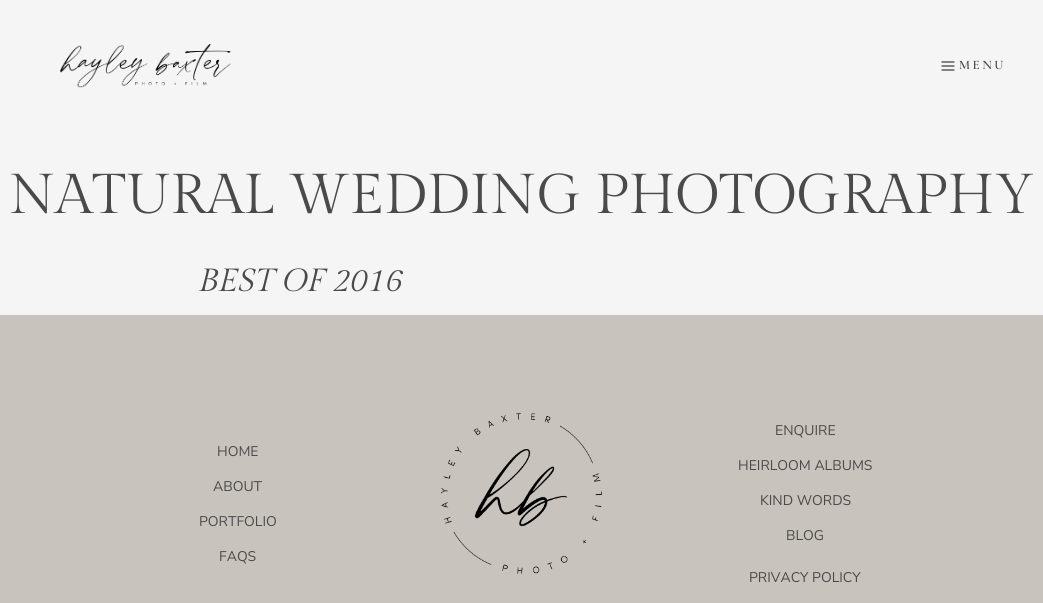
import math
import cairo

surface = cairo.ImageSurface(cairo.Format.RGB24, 1043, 603)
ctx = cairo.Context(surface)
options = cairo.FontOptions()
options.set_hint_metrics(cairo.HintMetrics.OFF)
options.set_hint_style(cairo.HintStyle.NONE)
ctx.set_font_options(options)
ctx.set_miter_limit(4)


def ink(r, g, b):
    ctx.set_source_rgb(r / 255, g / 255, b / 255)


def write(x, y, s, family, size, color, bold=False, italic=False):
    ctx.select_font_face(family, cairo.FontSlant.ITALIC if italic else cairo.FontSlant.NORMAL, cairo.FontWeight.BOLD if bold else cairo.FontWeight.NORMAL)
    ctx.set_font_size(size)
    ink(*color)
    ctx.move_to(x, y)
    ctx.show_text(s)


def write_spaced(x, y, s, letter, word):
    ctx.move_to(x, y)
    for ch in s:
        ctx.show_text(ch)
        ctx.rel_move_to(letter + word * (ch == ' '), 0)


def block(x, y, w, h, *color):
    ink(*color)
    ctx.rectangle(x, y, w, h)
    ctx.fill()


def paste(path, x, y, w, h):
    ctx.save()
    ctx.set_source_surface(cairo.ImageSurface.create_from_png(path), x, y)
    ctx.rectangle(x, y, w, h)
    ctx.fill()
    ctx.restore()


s1 = dict(family="Gilda Display", size=56, color=(74, 74, 74))
s2 = dict(family="Gilda Display", size=32, color=(74, 74, 74), italic=True)
s3 = dict(family="Nunito Sans", size=14, color=(74, 74, 74))

ink(245, 245, 245)
ctx.paint()
paste("pic1.png", 60, 44, 171, 44)
paste("pic2.png", 941, 61, 14, 10)
ctx.select_font_face("Cormorant Garamond SemiBold")
ctx.set_font_size(13)
ink(74, 74, 74)
write_spaced(959, 69, "MENU", 2.5, 0)
write(9, 213, "NATURAL WEDDING PHOTOGRAPHY", **s1)
write(197, 291, "BEST OF 2016", **s2)
block(0, 315, 1043, 288, 200, 196, 189)
write(217, 456, "HOME", **s3)
write(213, 491, "ABOUT", **s3)
write(199, 526, "PORTFOLIO", **s3)
write(219, 561, "FAQS", **s3)
paste("pic3.png", 441, 413, 161, 161)
write(775, 435, "ENQUIRE", **s3)
write(738, 470, "HEIRLOOM ALBUMS", **s3)
write(760, 505, "KIND WORDS", **s3)
write(786, 540, "BLOG", **s3)
write(749, 582, "PRIVACY POLICY", **s3)
surface.write_to_png("screenshot.png")
